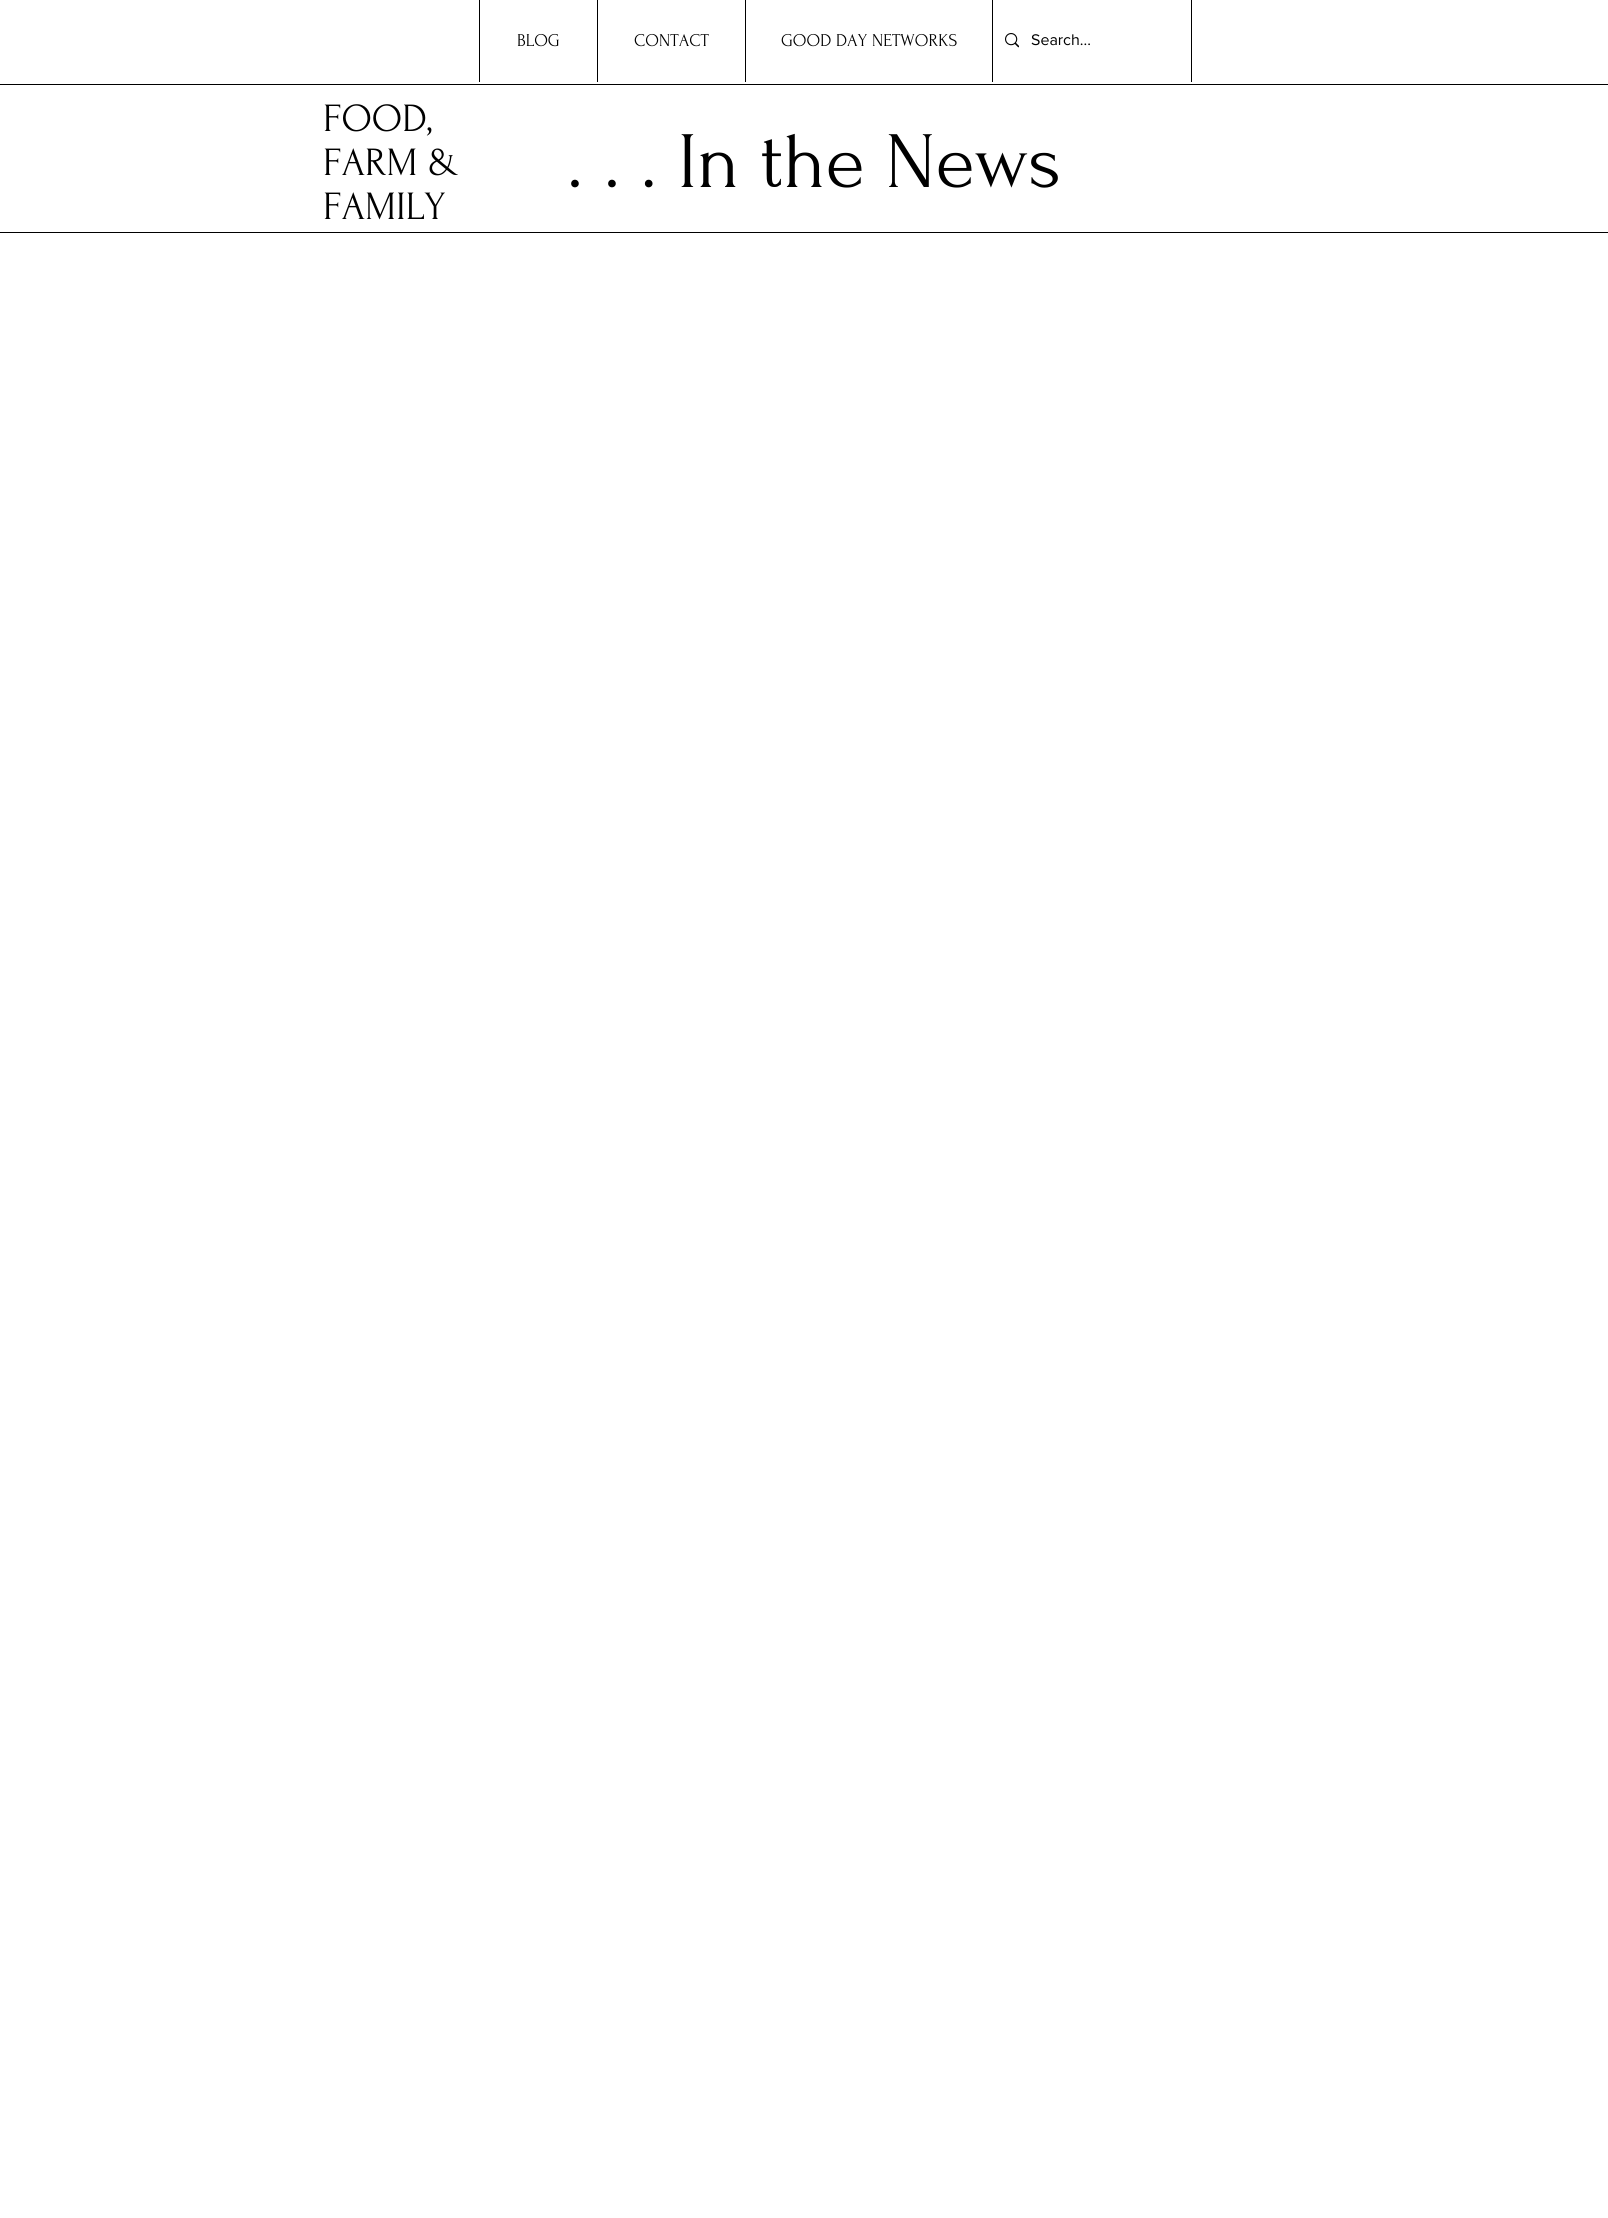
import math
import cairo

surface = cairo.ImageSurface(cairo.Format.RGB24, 1608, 2218)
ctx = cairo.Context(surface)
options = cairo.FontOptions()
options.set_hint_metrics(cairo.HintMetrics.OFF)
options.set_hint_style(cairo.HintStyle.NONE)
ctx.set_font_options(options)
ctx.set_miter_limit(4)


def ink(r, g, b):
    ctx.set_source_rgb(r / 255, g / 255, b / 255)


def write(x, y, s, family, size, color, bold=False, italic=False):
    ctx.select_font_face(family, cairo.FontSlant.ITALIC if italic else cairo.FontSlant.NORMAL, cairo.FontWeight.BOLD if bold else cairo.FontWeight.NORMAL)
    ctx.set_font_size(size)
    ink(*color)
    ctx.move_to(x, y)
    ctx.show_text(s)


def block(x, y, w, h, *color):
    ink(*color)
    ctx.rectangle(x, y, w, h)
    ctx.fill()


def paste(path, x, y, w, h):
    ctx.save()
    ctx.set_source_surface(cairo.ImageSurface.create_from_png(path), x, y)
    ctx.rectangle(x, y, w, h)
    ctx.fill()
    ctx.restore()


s1 = dict(family="Forum", size=18, color=(0, 0, 0))
s2 = dict(family="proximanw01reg", size=16, color=(0, 0, 0))
s3 = dict(family="Forum", size=40, color=(0, 0, 0))
s4 = dict(family="Forum", size=80, color=(0, 0, 0))

ink(255, 255, 255)
ctx.paint()
block(479, 0, 1, 82, 0, 0, 0)
write(517, 46, "BLOG", **s1)
block(597, 0, 1, 82, 0, 0, 0)
write(634, 46, "CONTACT", **s1)
block(745, 0, 1, 82, 0, 0, 0)
write(781, 46, "GOOD DAY NETWORKS", **s1)
block(992, 0, 1, 82, 0, 0, 0)
paste("pic1.png", 1005, 33, 14, 15)
write(1031, 45, "Search...", **s2)
block(1191, 0, 1, 82, 0, 0, 0)
block(0, 84, 1608, 1, 0, 0, 0)
write(323, 131, "FOOD,", **s3)
write(323, 175, "FARM &", **s3)
write(323, 219, "FAMILY", **s3)
write(567, 187, ". . . In the News", **s4)
block(0, 232, 1608, 1, 0, 0, 0)
surface.write_to_png("screenshot.png")
